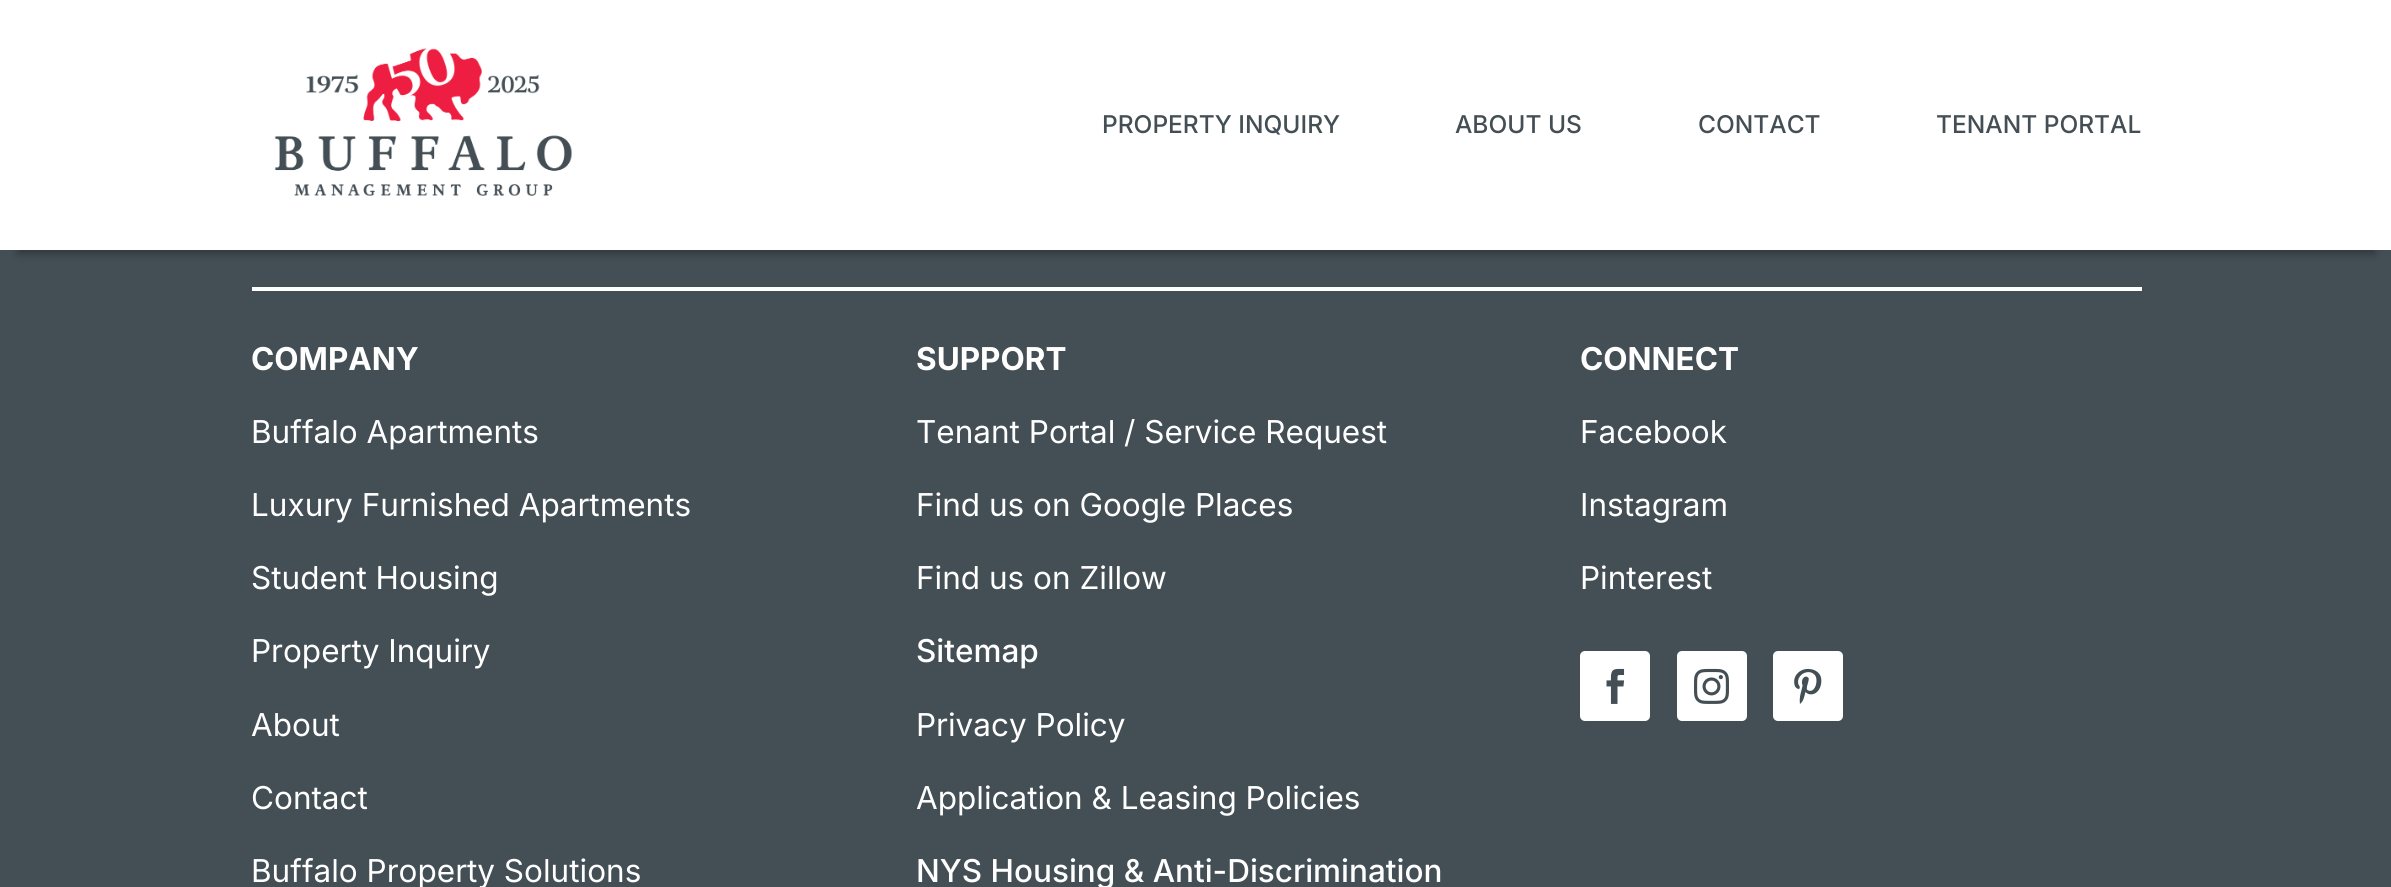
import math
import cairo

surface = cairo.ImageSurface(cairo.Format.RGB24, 2391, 887)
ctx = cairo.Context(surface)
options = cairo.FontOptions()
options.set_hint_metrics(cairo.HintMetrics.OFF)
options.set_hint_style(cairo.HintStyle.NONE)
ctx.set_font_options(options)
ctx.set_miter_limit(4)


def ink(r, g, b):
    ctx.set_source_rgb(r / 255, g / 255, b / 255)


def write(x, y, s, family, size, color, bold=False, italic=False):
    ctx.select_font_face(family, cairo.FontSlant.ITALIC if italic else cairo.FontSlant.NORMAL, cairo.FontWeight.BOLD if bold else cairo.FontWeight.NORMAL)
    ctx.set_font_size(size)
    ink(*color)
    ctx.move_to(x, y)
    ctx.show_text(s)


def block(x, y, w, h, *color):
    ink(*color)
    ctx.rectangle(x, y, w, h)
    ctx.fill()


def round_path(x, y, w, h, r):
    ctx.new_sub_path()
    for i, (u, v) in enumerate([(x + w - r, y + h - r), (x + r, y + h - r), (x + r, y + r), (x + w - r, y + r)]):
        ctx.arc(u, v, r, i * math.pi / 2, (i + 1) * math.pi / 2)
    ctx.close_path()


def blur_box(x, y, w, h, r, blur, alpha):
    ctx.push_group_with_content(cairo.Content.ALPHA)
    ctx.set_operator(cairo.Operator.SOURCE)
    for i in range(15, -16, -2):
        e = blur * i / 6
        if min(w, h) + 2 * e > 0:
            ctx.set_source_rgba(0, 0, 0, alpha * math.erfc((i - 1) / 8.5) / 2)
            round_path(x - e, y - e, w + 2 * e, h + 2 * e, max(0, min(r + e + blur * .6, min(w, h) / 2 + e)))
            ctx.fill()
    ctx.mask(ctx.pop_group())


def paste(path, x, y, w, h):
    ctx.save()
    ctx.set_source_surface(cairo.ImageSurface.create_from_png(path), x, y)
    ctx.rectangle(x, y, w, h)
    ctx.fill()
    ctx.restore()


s1 = dict(family="Inter Medium", size=24.5, color=(68, 79, 85))
s2 = dict(family="Inter", size=31.5, color=(255, 255, 255), bold=True)
s3 = dict(family="Inter", size=31.5, color=(255, 255, 255))
s4 = dict(family="Inter Medium", size=31.5, color=(255, 255, 255))

ink(68, 79, 85)
ctx.paint()
ink(0, 0, 0)
blur_box(18, 39, 2357, 215, 0, 4.5, 0.3)
block(0, 0, 2391, 250, 255, 255, 255)
paste("pic1.png", 274, 48, 299, 148)
write(1102, 133, "PROPERTY INQUIRY", **s1)
write(1455, 133, "ABOUT US", **s1)
write(1698, 133, "CONTACT", **s1)
write(1936, 133, "TENANT PORTAL", **s1)
block(252, 287, 1890, 4, 255, 255, 255)
write(251, 370, "COMPANY", **s2)
write(251, 443, "Buffalo Apartments", **s3)
write(251, 516, "Luxury Furnished Apartments", **s3)
write(251, 589, "Student Housing", **s3)
write(251, 662, "Property Inquiry", **s3)
write(251, 736, "About", **s3)
write(251, 809, "Contact", **s3)
write(251, 882, "Buffalo Property Solutions", **s3)
write(916, 370, "SUPPORT", **s2)
write(916, 443, "Tenant Portal / Service Request", **s3)
write(916, 516, "Find us on Google Places", **s3)
write(916, 589, "Find us on Zillow", **s3)
write(916, 662, "Sitemap", **s4)
write(916, 736, "Privacy Policy", **s3)
write(916, 809, "Application & Leasing Policies", **s3)
write(916, 882, "NYS Housing & Anti-Discrimination", **s4)
write(1580, 370, "CONNECT", **s2)
write(1580, 443, "Facebook", **s3)
write(1580, 516, "Instagram", **s3)
write(1580, 589, "Pinterest", **s3)
round_path(1580, 651, 70, 70, 5)
ctx.fill()
paste("pic2.png", 1606, 668, 19, 36)
round_path(1677, 651, 70, 70, 5)
ctx.fill()
paste("pic3.png", 1694, 668, 35, 36)
round_path(1773, 651, 70, 70, 5)
ctx.fill()
paste("pic4.png", 1794, 668, 28, 36)
surface.write_to_png("screenshot.png")
